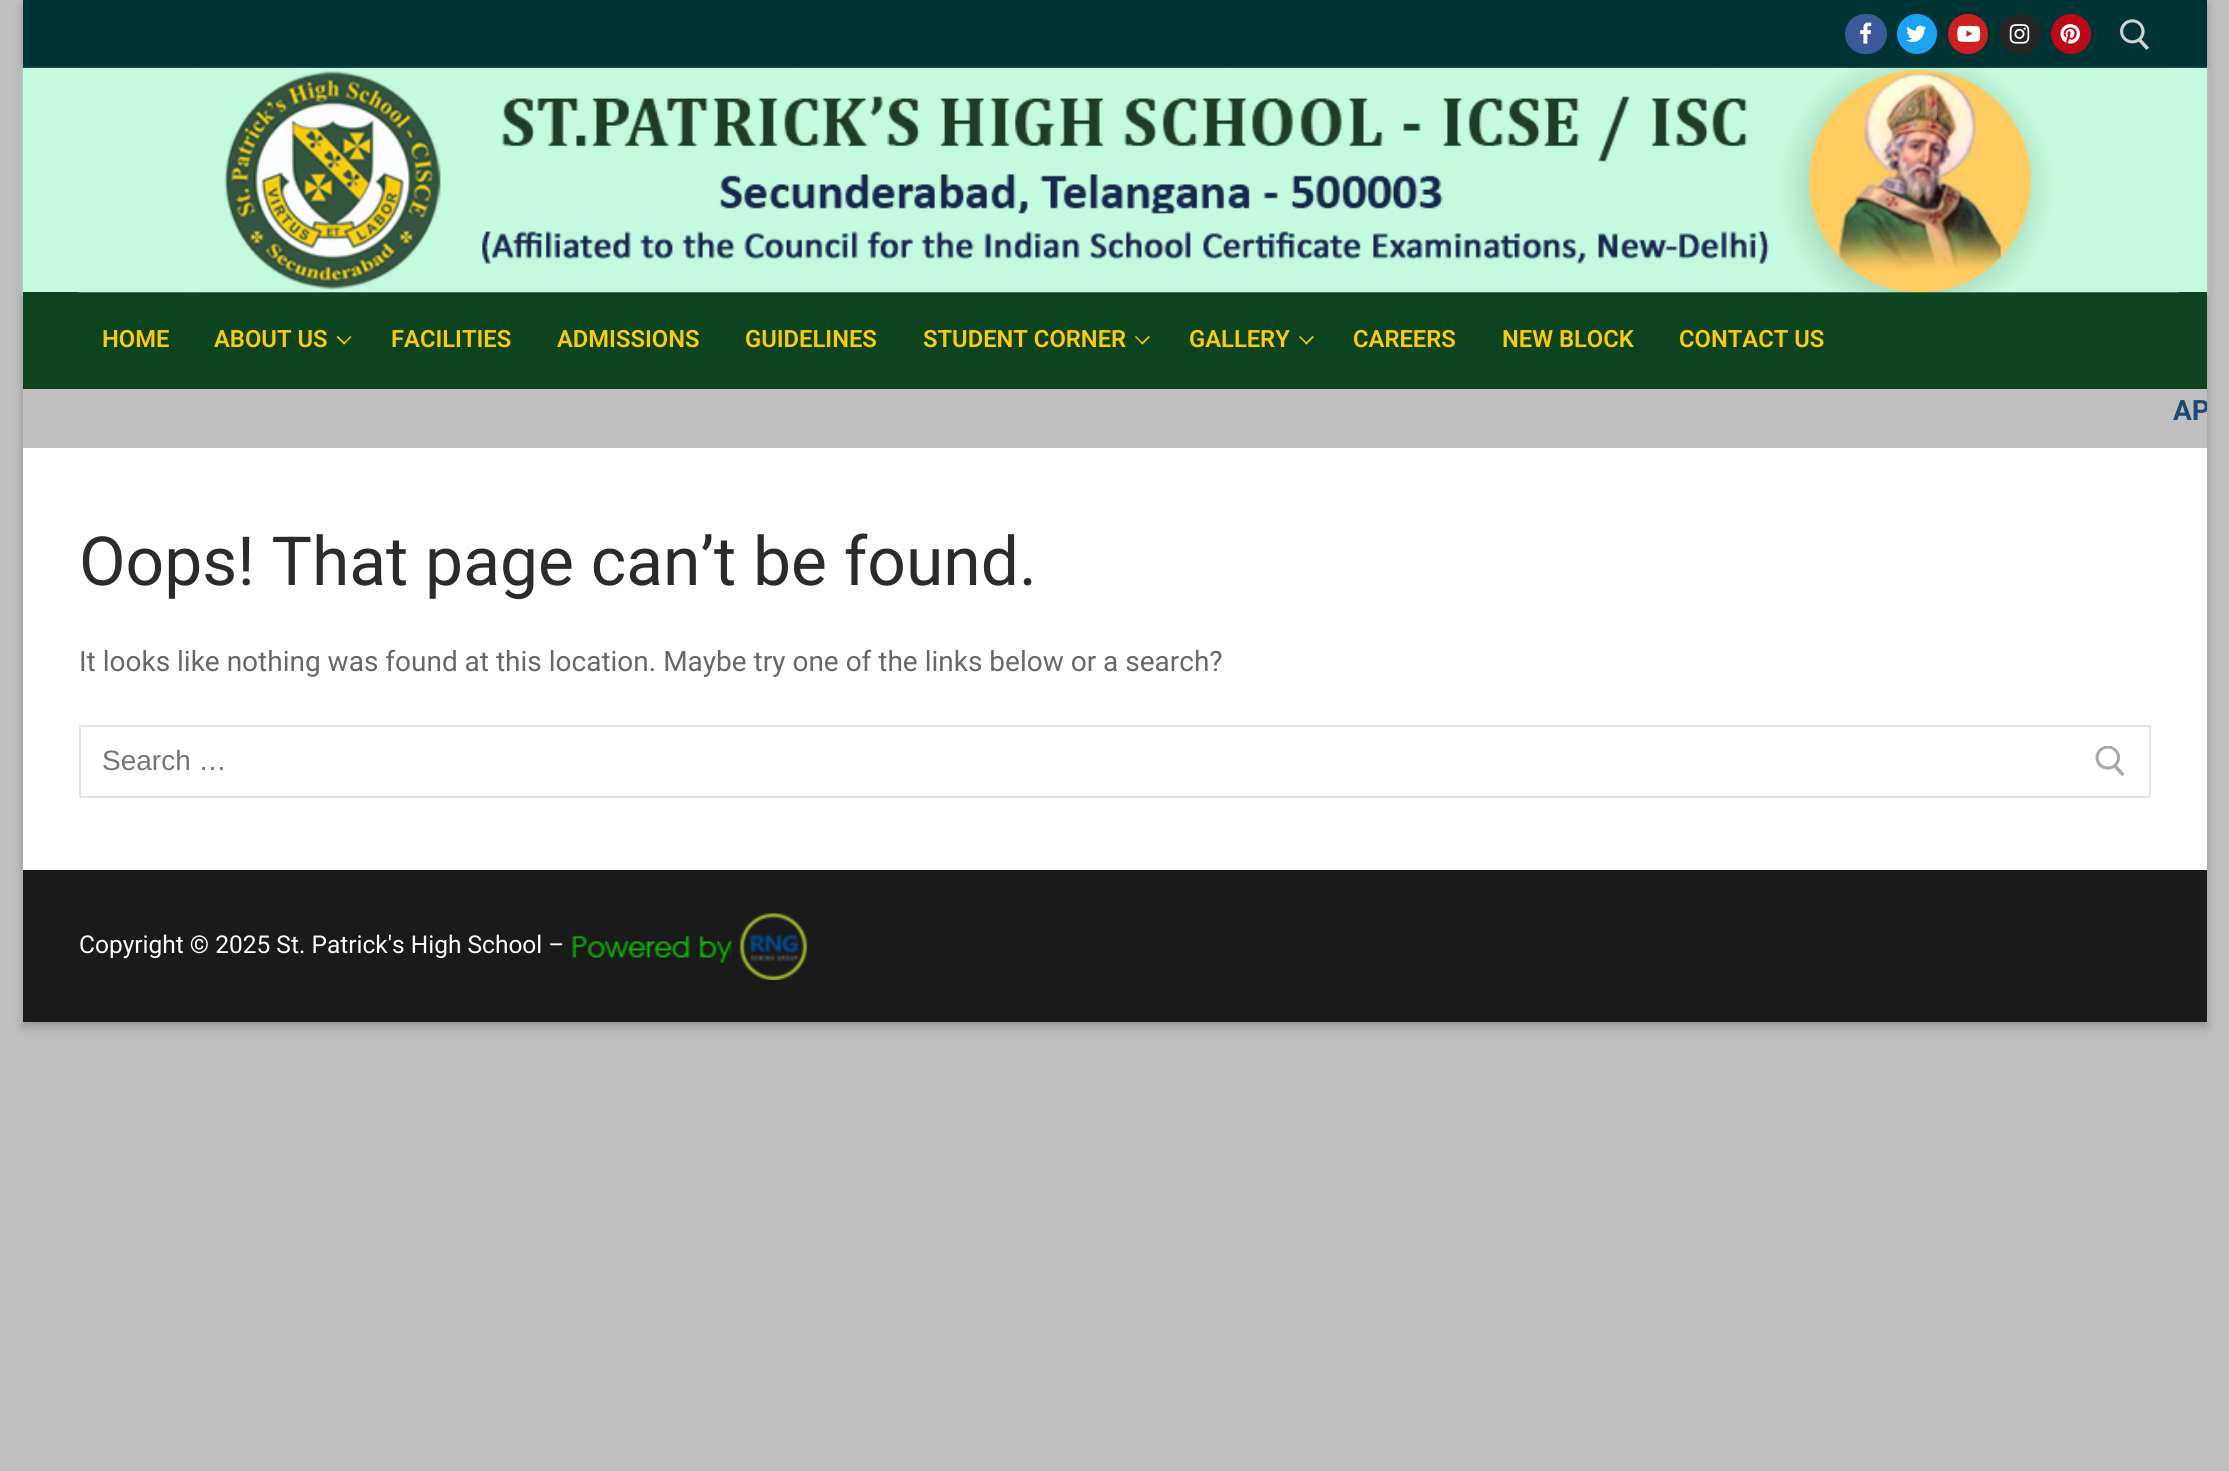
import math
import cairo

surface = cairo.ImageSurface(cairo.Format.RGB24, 2229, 1471)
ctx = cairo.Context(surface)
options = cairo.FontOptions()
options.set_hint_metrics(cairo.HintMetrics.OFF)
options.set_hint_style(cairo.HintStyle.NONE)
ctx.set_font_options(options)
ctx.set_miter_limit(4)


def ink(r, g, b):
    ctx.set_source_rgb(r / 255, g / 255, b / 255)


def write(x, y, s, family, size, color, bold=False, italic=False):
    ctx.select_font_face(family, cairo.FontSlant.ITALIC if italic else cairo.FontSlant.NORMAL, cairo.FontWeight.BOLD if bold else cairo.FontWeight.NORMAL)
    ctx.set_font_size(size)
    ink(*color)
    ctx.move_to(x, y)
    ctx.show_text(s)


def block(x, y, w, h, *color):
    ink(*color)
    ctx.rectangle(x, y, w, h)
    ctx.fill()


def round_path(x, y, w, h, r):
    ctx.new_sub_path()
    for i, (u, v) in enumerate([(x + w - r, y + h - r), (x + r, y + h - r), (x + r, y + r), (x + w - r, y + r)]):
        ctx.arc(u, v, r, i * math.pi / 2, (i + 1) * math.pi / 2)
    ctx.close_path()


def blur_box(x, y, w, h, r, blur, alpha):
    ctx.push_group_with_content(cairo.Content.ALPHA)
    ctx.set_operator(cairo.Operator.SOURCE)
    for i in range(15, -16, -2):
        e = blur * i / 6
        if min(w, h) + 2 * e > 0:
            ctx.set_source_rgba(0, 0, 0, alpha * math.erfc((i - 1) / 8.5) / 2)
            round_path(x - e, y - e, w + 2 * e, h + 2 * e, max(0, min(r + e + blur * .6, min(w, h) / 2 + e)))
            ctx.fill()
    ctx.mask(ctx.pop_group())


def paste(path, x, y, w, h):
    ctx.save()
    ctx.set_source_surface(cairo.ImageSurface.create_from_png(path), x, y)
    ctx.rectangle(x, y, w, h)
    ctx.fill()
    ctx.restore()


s1 = dict(family="Roboto SemiBold", size=23.75, color=(253, 203, 12))
s2 = dict(family="Roboto", size=28, color=(30, 75, 117), bold=True)
s3 = dict(family="Roboto", size=67.75, color=(43, 43, 43))
s4 = dict(family="Roboto", size=28, color=(104, 104, 104))
s5 = dict(family="Liberation Sans", size=28, color=(117, 117, 117))
s6 = dict(family="Roboto", size=24.5, color=(253, 253, 253))

ink(191, 191, 191)
ctx.paint()
ctx.save()
ctx.set_fill_rule(cairo.FillRule.EVEN_ODD)
ctx.new_path()
ctx.move_to(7, 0)
ctx.line_to(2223, 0)
ctx.line_to(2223, 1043)
ctx.line_to(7, 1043)
ctx.close_path()
ctx.move_to(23, 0)
ctx.line_to(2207, 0)
ctx.line_to(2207, 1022)
ctx.line_to(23, 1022)
ctx.close_path()
ctx.clip()
ink(0, 0, 0)
blur_box(23, 5, 2184, 1022, 0, 5, 0.23)
ctx.restore()
block(23, 0, 2184, 68, 0, 51, 51)
ink(59, 89, 152)
round_path(1845, 14, 42, 40, 20)
ctx.fill()
paste("pic1.png", 1860, 22, 12, 22)
ink(29, 161, 242)
ctx.arc(1917, 34, 20, 0, 2 * math.pi)
ctx.fill()
paste("pic2.png", 1906, 25, 21, 17)
ink(205, 32, 31)
ctx.arc(1968, 34, 20, 0, 2 * math.pi)
ctx.fill()
paste("pic3.png", 1957, 25, 24, 17)
ink(38, 38, 38)
round_path(1999, 14, 42, 40, 20)
ctx.fill()
paste("pic4.png", 2009, 24, 21, 20)
ink(189, 8, 28)
ctx.arc(2071, 34, 20, 0, 2 * math.pi)
ctx.fill()
paste("pic5.png", 2060, 24, 20, 20)
paste("pic6.png", 2120, 19, 29, 31)
ink(225, 229, 234)
blur_box(23, 70, 2184, 224, 0, 2, 1)
block(23, 68, 2184, 224, 196, 251, 224)
block(23, 292, 2184, 97, 12, 68, 31)
paste("pic7.png", 78, 68, 2101, 225)
write(102, 347, "HOME", **s1)
write(214, 347, "ABOUT US", **s1)
ctx.new_path()
ctx.move_to(344, 344.5)
ctx.line_to(336.5, 337)
ctx.line_to(338, 336)
ctx.line_to(345.5, 343.5)
ctx.close_path()
ctx.fill()
ctx.new_path()
ctx.move_to(344, 344.5)
ctx.line_to(343, 343.5)
ctx.line_to(350.5, 336)
ctx.line_to(351.5, 337)
ctx.close_path()
ctx.fill()
write(391, 347, "FACILITIES", **s1)
write(557, 347, "ADMISSIONS", **s1)
write(745, 347, "GUIDELINES", **s1)
write(923, 347, "STUDENT CORNER", **s1)
ctx.new_path()
ctx.move_to(1142.5, 344.5)
ctx.line_to(1135, 337)
ctx.line_to(1136, 336)
ctx.line_to(1143.5, 343.5)
ctx.close_path()
ctx.fill()
ctx.new_path()
ctx.move_to(1142.5, 344.5)
ctx.line_to(1141, 343.5)
ctx.line_to(1148.5, 336)
ctx.line_to(1150, 337)
ctx.close_path()
ctx.fill()
write(1189, 347, "GALLERY", **s1)
ctx.new_path()
ctx.move_to(1306.5, 344.5)
ctx.line_to(1299, 337)
ctx.line_to(1300, 336)
ctx.line_to(1307.5, 343.5)
ctx.close_path()
ctx.fill()
ctx.new_path()
ctx.move_to(1306.5, 344.5)
ctx.line_to(1305, 343.5)
ctx.line_to(1312.5, 336)
ctx.line_to(1314, 337)
ctx.close_path()
ctx.fill()
write(1353, 347, "CAREERS", **s1)
write(1502, 347, "NEW BLOCK", **s1)
write(1679, 347, "CONTACT US", **s1)
ctx.save()
ctx.rectangle(23, 389, 2184, 45)
ctx.clip()
write(2173, 420, "AP", **s2)
ctx.restore()
block(23, 448, 2184, 422, 255, 255, 255)
write(79, 585, "Oops! That page can’t be found.", **s3)
write(79, 671, "It looks like nothing was found at this location. Maybe try one of the links below or a search?", **s4)
round_path(80, 726, 2070, 71, 1)
ink(229, 229, 229)
ctx.stroke()
write(102, 770, "Search …", **s5)
paste("pic8.png", 2095, 746, 30, 31)
block(23, 870, 2184, 152, 26, 26, 26)
write(79, 953, "Copyright © 2025 St. Patrick's High School –", **s6)
paste("pic9.png", 571, 913, 237, 67)
surface.write_to_png("screenshot.png")
